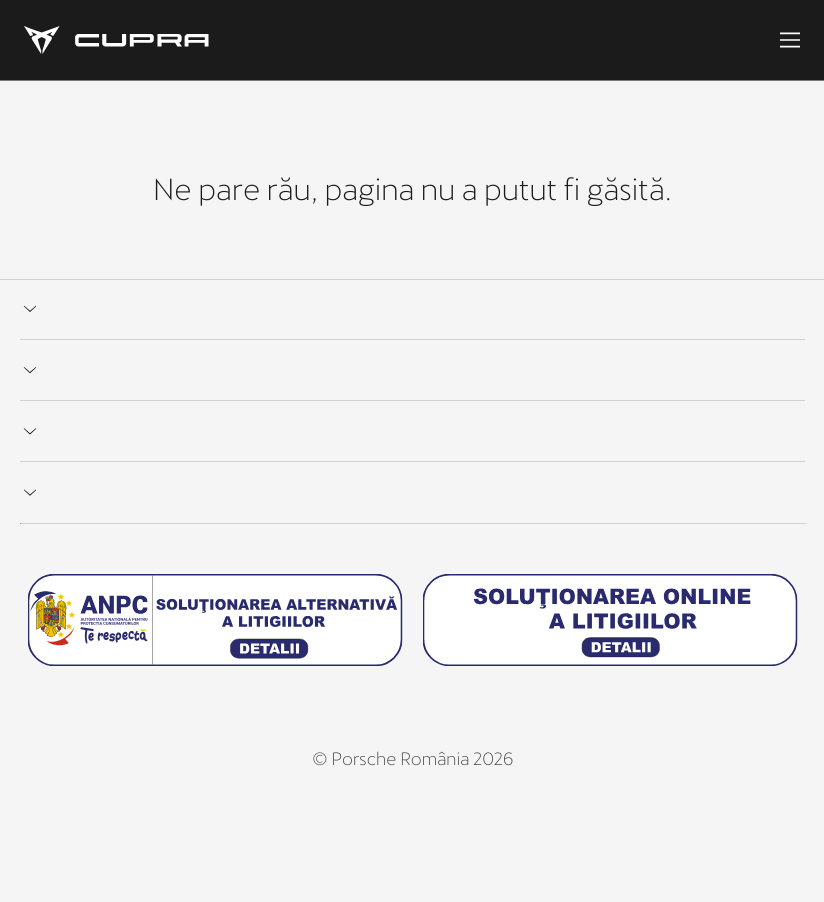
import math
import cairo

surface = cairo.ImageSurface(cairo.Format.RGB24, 824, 902)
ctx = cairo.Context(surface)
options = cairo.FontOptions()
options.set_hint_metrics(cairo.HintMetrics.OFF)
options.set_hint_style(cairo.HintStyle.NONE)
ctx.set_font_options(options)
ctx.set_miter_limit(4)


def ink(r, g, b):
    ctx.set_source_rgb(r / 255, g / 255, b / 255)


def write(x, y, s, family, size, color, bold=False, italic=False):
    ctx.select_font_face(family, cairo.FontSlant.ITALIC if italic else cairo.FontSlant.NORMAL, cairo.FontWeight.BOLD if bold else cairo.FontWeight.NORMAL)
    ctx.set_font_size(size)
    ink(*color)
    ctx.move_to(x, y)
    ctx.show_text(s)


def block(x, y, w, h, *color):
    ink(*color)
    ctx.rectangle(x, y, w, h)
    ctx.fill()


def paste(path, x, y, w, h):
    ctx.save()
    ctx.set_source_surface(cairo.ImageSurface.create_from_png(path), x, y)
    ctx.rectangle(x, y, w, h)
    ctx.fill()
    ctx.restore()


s1 = dict(family="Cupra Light", size=30, color=(27, 27, 27))
s2 = dict(family="Cupra Light", size=17.5, color=(68, 68, 68))

ink(245, 245, 245)
ctx.paint()
block(0, 0, 824, 80, 27, 27, 27)
block(0, 80, 824, 1, 117, 120, 123)
paste("pic1.png", 24, 26, 185, 28)
paste("pic2.png", 780, 32, 20, 16)
write(153, 200, "Ne pare rău, pagina nu a putut fi găsită.", **s1)
block(0, 279, 824, 1, 209, 209, 209)
paste("pic3.png", 23, 305, 14, 7)
block(20, 339, 785, 1, 209, 209, 209)
paste("pic4.png", 23, 367, 14, 7)
block(20, 400, 785, 1, 209, 209, 209)
paste("pic5.png", 23, 428, 14, 7)
block(20, 461, 785, 1, 209, 209, 209)
paste("pic6.png", 23, 489, 13, 7)
block(20, 523, 788, 1, 209, 209, 209)
block(806, 523, 1, 1, 238, 238, 238)
block(20, 523, 1, 1, 159, 159, 159)
paste("pic7.png", 28, 574, 375, 92)
paste("pic8.png", 423, 574, 375, 92)
write(312, 765, "© Porsche România 2026", **s2)
surface.write_to_png("screenshot.png")
